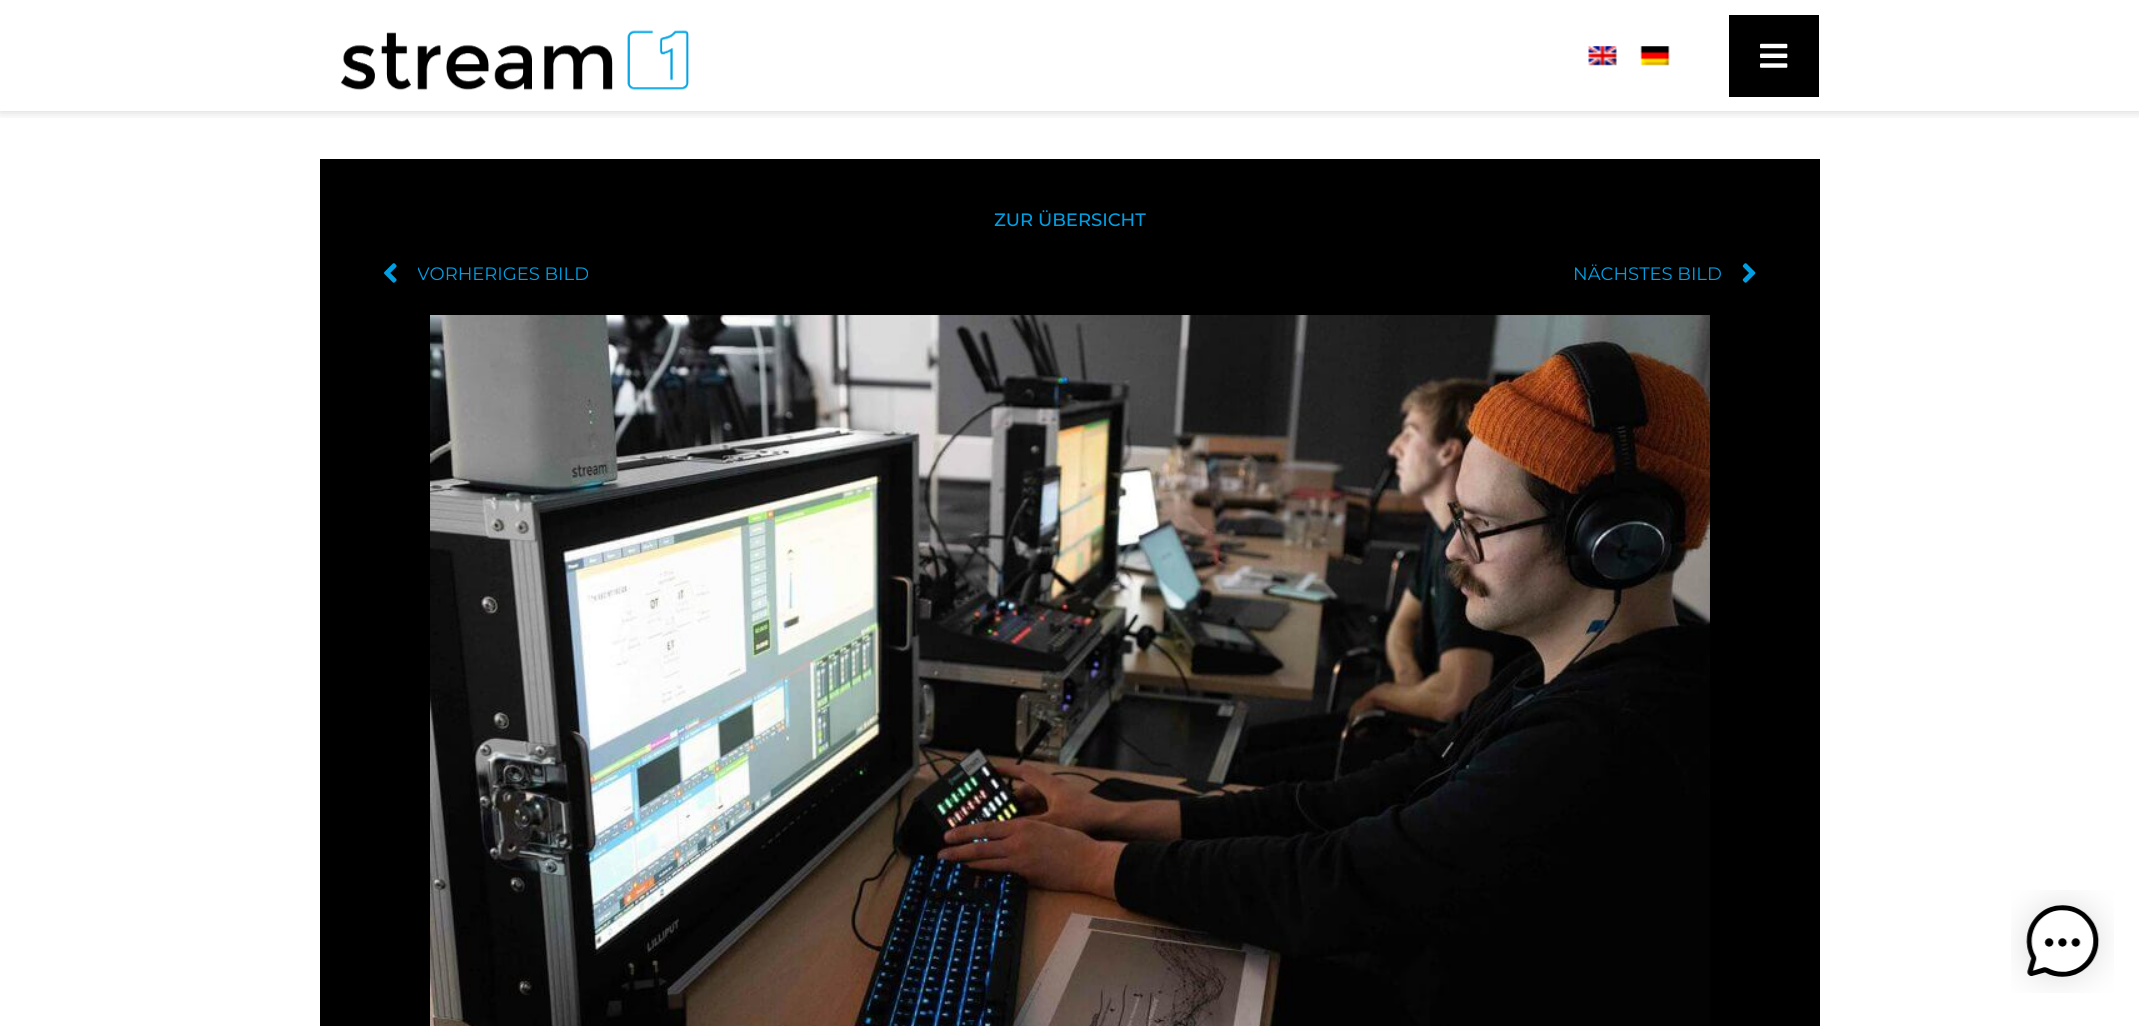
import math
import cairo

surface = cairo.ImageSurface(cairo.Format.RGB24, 2139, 1026)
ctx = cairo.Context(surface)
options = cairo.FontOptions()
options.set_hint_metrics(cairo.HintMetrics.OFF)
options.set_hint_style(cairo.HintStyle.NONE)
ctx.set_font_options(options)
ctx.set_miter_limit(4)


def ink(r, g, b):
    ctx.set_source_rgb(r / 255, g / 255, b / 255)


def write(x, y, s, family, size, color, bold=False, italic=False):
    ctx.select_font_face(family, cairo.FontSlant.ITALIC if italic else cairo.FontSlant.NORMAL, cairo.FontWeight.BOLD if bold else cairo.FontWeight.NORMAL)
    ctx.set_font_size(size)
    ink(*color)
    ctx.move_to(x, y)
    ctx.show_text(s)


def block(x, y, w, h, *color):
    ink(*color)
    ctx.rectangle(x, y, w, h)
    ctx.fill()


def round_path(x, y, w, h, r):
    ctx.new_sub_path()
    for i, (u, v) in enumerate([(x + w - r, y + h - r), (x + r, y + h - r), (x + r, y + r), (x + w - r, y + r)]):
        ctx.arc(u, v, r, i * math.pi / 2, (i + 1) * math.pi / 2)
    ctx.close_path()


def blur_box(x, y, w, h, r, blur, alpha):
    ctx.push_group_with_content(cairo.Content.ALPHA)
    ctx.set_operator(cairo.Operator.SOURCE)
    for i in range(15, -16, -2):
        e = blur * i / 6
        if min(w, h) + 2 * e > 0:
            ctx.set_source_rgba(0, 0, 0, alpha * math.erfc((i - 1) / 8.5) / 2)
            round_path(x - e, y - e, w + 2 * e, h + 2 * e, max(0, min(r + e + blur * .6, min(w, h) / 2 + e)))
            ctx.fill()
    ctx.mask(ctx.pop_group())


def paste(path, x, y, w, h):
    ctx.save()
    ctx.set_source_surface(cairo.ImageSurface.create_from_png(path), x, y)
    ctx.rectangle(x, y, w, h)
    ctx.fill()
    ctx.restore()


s1 = dict(family="Montserrat Medium", size=18, color=(0, 159, 227))
s2 = dict(family="Montserrat Thin", size=18, color=(0, 159, 227))

ink(255, 255, 255)
ctx.paint()
ctx.save()
ctx.rectangle(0, 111, 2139, 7)
ctx.clip()
ink(0, 0, 0)
blur_box(0, 0, 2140, 111, 0, 6, 0.18)
ctx.restore()
paste("pic1.png", 340, 30, 349, 61)
paste("pic2.png", 1588, 46, 29, 20)
paste("pic3.png", 1640, 46, 30, 20)
block(1729, 15, 90, 82, 0, 0, 0)
paste("pic4.png", 1760, 43, 28, 25)
block(320, 159, 1500, 867, 0, 0, 0)
write(994, 226, "ZUR ÜBERSICHT", **s1)
paste("pic5.png", 384, 263, 13, 20)
ctx.save()
ctx.rectangle(418, 263, 171, 23)
ctx.clip()
write(417, 280, "VORHERIGES BILD", **s2)
ctx.restore()
write(1573, 280, "NÄCHSTES BILD", **s2)
paste("pic6.png", 1742, 263, 14, 20)
paste("pic7.png", 430, 315, 1280, 711)
paste("pic8.png", 2011, 890, 103, 103)
surface.write_to_png("screenshot.png")
